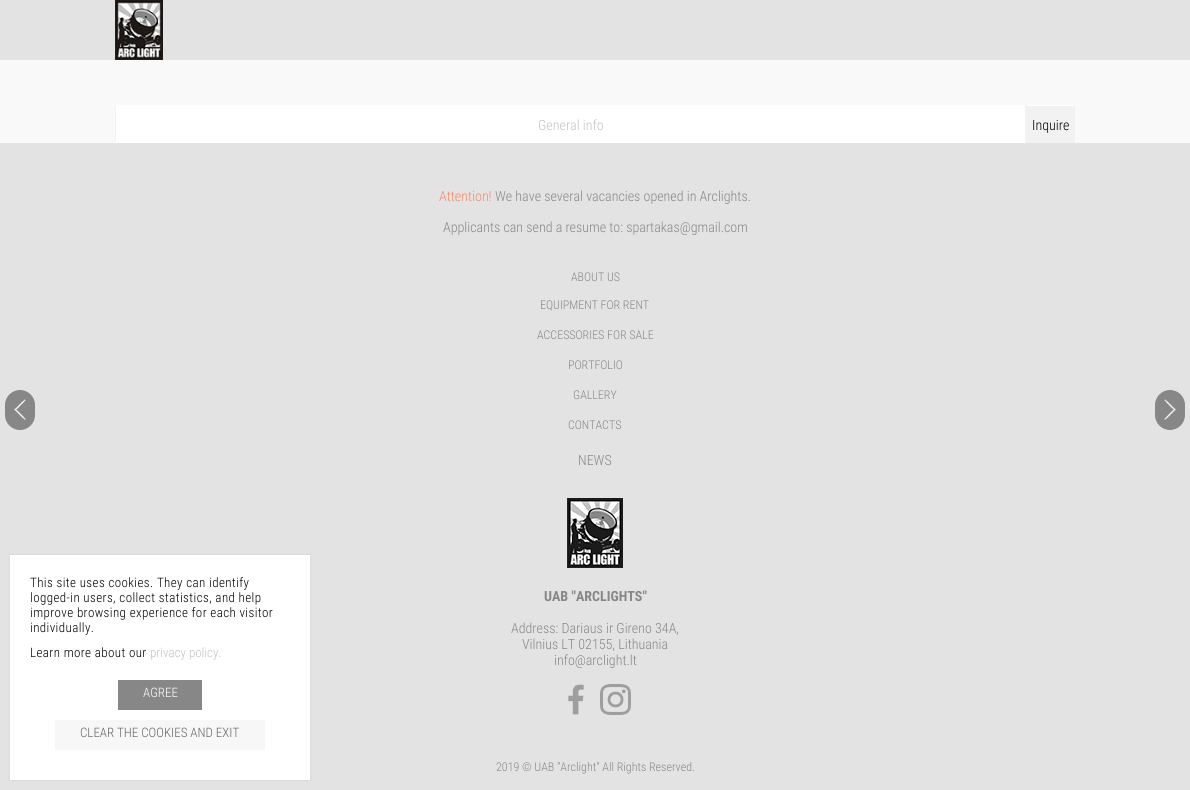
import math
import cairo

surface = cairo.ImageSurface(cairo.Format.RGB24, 1190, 790)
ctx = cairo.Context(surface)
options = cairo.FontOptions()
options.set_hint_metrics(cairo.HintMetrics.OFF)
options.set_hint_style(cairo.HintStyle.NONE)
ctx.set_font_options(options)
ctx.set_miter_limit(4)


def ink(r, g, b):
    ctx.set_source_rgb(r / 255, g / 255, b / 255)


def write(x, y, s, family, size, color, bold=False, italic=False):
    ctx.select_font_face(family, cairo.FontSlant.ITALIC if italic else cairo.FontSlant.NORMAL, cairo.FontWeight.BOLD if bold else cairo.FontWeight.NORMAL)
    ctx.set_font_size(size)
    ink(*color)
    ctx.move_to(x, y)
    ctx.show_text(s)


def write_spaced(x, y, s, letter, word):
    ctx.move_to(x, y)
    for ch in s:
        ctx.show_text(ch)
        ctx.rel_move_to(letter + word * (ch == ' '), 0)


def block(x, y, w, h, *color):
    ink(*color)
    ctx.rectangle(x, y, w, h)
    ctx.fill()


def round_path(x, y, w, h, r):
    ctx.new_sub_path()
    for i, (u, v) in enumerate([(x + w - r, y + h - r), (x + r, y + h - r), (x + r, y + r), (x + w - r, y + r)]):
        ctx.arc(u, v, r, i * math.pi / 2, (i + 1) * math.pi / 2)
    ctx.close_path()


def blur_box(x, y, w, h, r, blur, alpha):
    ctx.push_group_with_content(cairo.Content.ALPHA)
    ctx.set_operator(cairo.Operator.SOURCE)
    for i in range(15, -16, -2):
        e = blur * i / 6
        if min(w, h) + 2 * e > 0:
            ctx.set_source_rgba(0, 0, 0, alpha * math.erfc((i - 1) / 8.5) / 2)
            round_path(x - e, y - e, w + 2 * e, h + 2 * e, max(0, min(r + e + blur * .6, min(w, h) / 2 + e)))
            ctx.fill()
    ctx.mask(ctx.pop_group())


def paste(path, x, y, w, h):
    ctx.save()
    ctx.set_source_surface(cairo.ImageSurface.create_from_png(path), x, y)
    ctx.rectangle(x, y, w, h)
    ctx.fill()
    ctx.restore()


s1 = dict(family="Roboto Condensed Light", size=14, color=(194, 194, 194))
s2 = dict(family="Roboto Condensed Light", size=14, color=(0, 0, 0))
s3 = dict(family="Roboto Condensed Light", size=13, color=(194, 194, 194))
s4 = dict(family="Roboto Condensed Light", size=13, color=(255, 255, 255))
s5 = dict(family="Roboto Condensed Light", size=13, color=(102, 102, 102))
s6 = dict(family="Roboto Condensed Light", size=14, color=(249, 136, 102))
s7 = dict(family="Roboto Condensed Light", size=14, color=(135, 135, 135))
s8 = dict(family="Roboto Condensed Light", size=12, color=(135, 135, 135))
s9 = dict(family="Roboto Condensed", size=14, color=(135, 135, 135), bold=True)

ink(227, 227, 227)
ctx.paint()
paste("pic1.png", 115, 0, 48, 60)
block(0, 60, 1190, 83, 249, 249, 249)
block(115, 105, 911, 38, 255, 255, 255)
ink(242, 242, 242)
ctx.new_path()
ctx.move_to(1026, 105)
ctx.line_to(1026, 145)
ctx.line_to(1025, 144)
ctx.line_to(1025, 106)
ctx.close_path()
ctx.fill()
ctx.new_path()
ctx.move_to(115, 145)
ctx.line_to(115, 105)
ctx.line_to(116, 106)
ctx.line_to(116, 144)
ctx.close_path()
ctx.fill()
write(538, 130, "General info", **s1)
block(1027, 106, 47, 37, 242, 242, 242)
block(1026, 105, 49, 1, 255, 255, 255)
block(1074, 105, 1, 38, 242, 242, 242)
block(1026, 105, 1, 38, 242, 242, 242)
write(1032, 130, "Inquire", **s2)
ink(135, 135, 135)
round_path(5, 390, 30, 40, 15)
ctx.fill()
paste("pic2.png", 14, 399, 12, 21)
round_path(1155, 390, 30, 40, 15)
ctx.fill()
paste("pic3.png", 1164, 399, 12, 21)
ink(204, 204, 204)
blur_box(10, 555, 300, 225, 0, 1, 1)
block(10, 555, 300, 225, 255, 255, 255)
ctx.set_font_size(13)
ink(0, 0, 0)
write_spaced(30, 587, "This site uses cookies. They can identify", 0.4, 0)
write_spaced(30, 602, "logged-in users, collect statistics, and help", 0.4, 0)
write_spaced(30, 617, "improve browsing experience for each visitor", 0.4, 0)
write_spaced(30, 632, "individually.", 0.4, 0)
write_spaced(30, 657, "Learn more about our", 0.4, 0)
write(150, 657, "privacy policy.", **s3)
block(118, 680, 84, 30, 135, 135, 135)
write(143, 697, "AGREE", **s4)
block(55, 720, 210, 30, 247, 247, 247)
write(80, 737, "CLEAR THE COOKIES AND EXIT", **s5)
write(439, 201, "Attention!", **s6)
write(495, 201, "We have several vacancies opened in Arclights.", **s7)
write(443, 232, "Applicants can send a resume to: spartakas@gmail.com", **s7)
write(571, 281, "ABOUT US", **s8)
write(540, 309, "EQUIPMENT FOR RENT", **s8)
write(537, 339, "ACCESSORIES FOR SALE", **s8)
write(568, 369, "PORTFOLIO", **s8)
write(573, 399, "GALLERY", **s8)
write(568, 429, "CONTACTS", **s8)
write(578, 465, "NEWS", **s7)
paste("pic4.png", 567, 498, 56, 70)
write(544, 601, "UAB \"ARCLIGHTS\"", **s9)
write(511, 633, "Address: Dariaus ir Gireno 34A,", **s7)
write(522, 649, "Vilnius LT 02155, Lithuania", **s7)
write(554, 665, "info@arclight.lt", **s7)
paste("pic5.png", 568, 684, 16, 31)
paste("pic6.png", 600, 684, 31, 31)
write(496, 771, "2019 © UAB \"Arclight\" All Rights Reserved.", **s8)
surface.write_to_png("screenshot.png")
